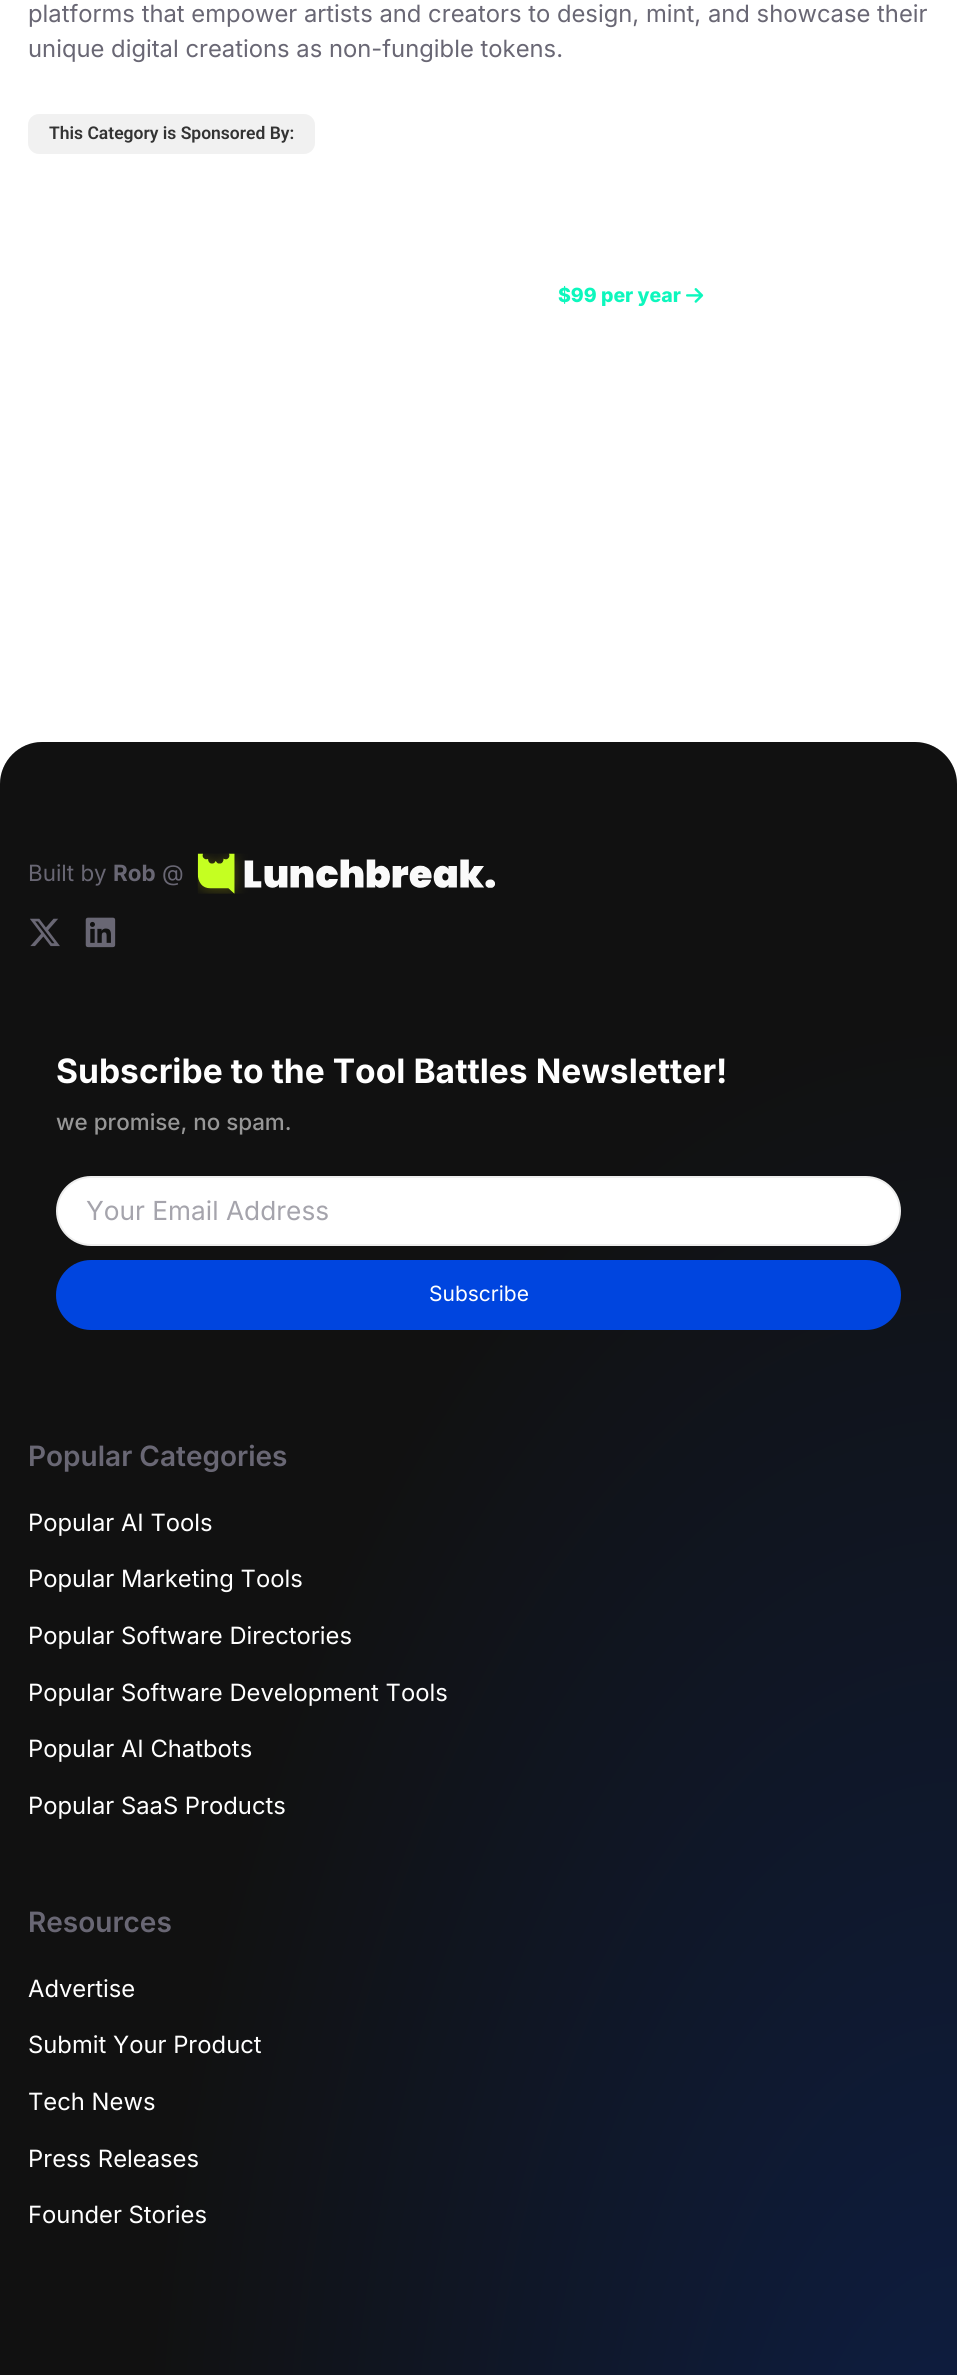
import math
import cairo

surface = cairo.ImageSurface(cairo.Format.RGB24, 957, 2375)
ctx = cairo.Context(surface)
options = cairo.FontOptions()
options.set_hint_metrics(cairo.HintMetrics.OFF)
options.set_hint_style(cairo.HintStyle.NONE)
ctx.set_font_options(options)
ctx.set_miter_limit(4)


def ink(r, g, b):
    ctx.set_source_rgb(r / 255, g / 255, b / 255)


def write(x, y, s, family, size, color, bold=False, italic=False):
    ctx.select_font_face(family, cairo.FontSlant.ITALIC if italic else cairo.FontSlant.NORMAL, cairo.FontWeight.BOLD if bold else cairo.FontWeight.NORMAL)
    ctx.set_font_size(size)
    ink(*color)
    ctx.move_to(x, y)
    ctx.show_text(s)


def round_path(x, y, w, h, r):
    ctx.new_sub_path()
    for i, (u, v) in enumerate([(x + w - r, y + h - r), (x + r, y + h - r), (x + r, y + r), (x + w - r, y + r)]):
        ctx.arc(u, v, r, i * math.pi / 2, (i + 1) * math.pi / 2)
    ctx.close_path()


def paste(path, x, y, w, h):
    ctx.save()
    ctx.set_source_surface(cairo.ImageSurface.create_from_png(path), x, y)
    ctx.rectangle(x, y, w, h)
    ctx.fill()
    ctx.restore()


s1 = dict(family="Inter", size=23.8, color=(105, 103, 116))
s2 = dict(family="Roboto SemiBold", size=17.5, color=(51, 51, 51))
s3 = dict(family="Inter ExtraBold", size=19.5, color=(13, 247, 189))
s4 = dict(family="Inter", size=22.4, color=(105, 103, 116))
s5 = dict(family="Inter", size=22.4, color=(105, 103, 116), bold=True)
s6 = dict(family="Inter", size=33.6, color=(255, 255, 255), bold=True)
s7 = dict(family="Inter Medium", size=22.4, color=(151, 151, 151))
s8 = dict(family="Inter", size=26.25, color=(165, 164, 172))
s9 = dict(family="Inter", size=21, color=(255, 255, 255))
s10 = dict(family="Inter SemiBold", size=28, color=(105, 103, 116))
s11 = dict(family="Inter", size=23.8, color=(255, 255, 255))

ink(255, 255, 255)
ctx.paint()
write(28, 22, "platforms that empower artists and creators to design, mint, and showcase their", **s1)
write(28, 57, "unique digital creations as non-fungible tokens.", **s1)
ink(241, 241, 241)
round_path(28, 114, 287, 40, 11)
ctx.fill()
write(49, 139, "This Category is Sponsored By:", **s2)
write(558, 302, "$99 per year", **s3)
paste("pic1.png", 686, 288, 18, 15)
ink(17, 17, 17)
ctx.new_path()
ctx.move_to(42, 742)
ctx.line_to(915, 742)
ctx.curve_to(938, 742, 957, 761, 957, 784)
ctx.line_to(957, 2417)
ctx.line_to(0, 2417)
ctx.line_to(0, 784)
ctx.curve_to(0, 761, 19, 742, 42, 742)
ctx.close_path()
ctx.fill()
gradient = cairo.RadialGradient(0, 0, 0, 0, 0, 1)
gradient.set_matrix(cairo.Matrix(1 / 1354, 0, 0, 1 / 2641, -1 * 957 / 1354, -1 * 2609 / 2641))
gradient.add_color_stop_rgba(0, 0, 0.271, 0.875, 0.25)
gradient.add_color_stop_rgba(0.6, 0.067, 0.067, 0.067, 0.25)
ctx.set_source(gradient)
ctx.new_path()
ctx.move_to(42, 742)
ctx.line_to(915, 742)
ctx.curve_to(938, 742, 957, 761, 957, 784)
ctx.line_to(957, 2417)
ctx.line_to(0, 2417)
ctx.line_to(0, 784)
ctx.curve_to(0, 761, 19, 742, 42, 742)
ctx.close_path()
ctx.fill()
write(28, 881, "Built by", **s4)
write(113, 881, "Rob", **s5)
write(162, 881, "@", **s4)
paste("pic2.png", 197, 853, 298, 41)
paste("pic3.png", 30, 918, 30, 29)
paste("pic4.png", 85, 917, 31, 31)
write(56, 1083, "Subscribe to the Tool Battles Newsletter!", **s6)
write(56, 1130, "we promise, no spam.", **s7)
ink(255, 255, 255)
round_path(57, 1177, 843, 68, 34)
ctx.fill_preserve()
ink(238, 238, 238)
ctx.stroke()
write(86, 1220, "Your Email Address", **s8)
ink(0, 69, 223)
round_path(56, 1260, 845, 70, 35)
ctx.fill()
write(429, 1301, "Subscribe", **s9)
write(28, 1466, "Popular Categories", **s10)
write(28, 1531, "Popular AI Tools", **s11)
write(28, 1587, "Popular Marketing Tools", **s11)
write(28, 1644, "Popular Software Directories", **s11)
write(28, 1701, "Popular Software Development Tools", **s11)
write(28, 1757, "Popular AI Chatbots", **s11)
write(28, 1814, "Popular SaaS Products", **s11)
write(28, 1932, "Resources", **s10)
write(28, 1997, "Advertise", **s11)
write(28, 2053, "Submit Your Product", **s11)
write(28, 2110, "Tech News", **s11)
write(28, 2167, "Press Releases", **s11)
write(28, 2223, "Founder Stories", **s11)
surface.write_to_png("screenshot.png")
